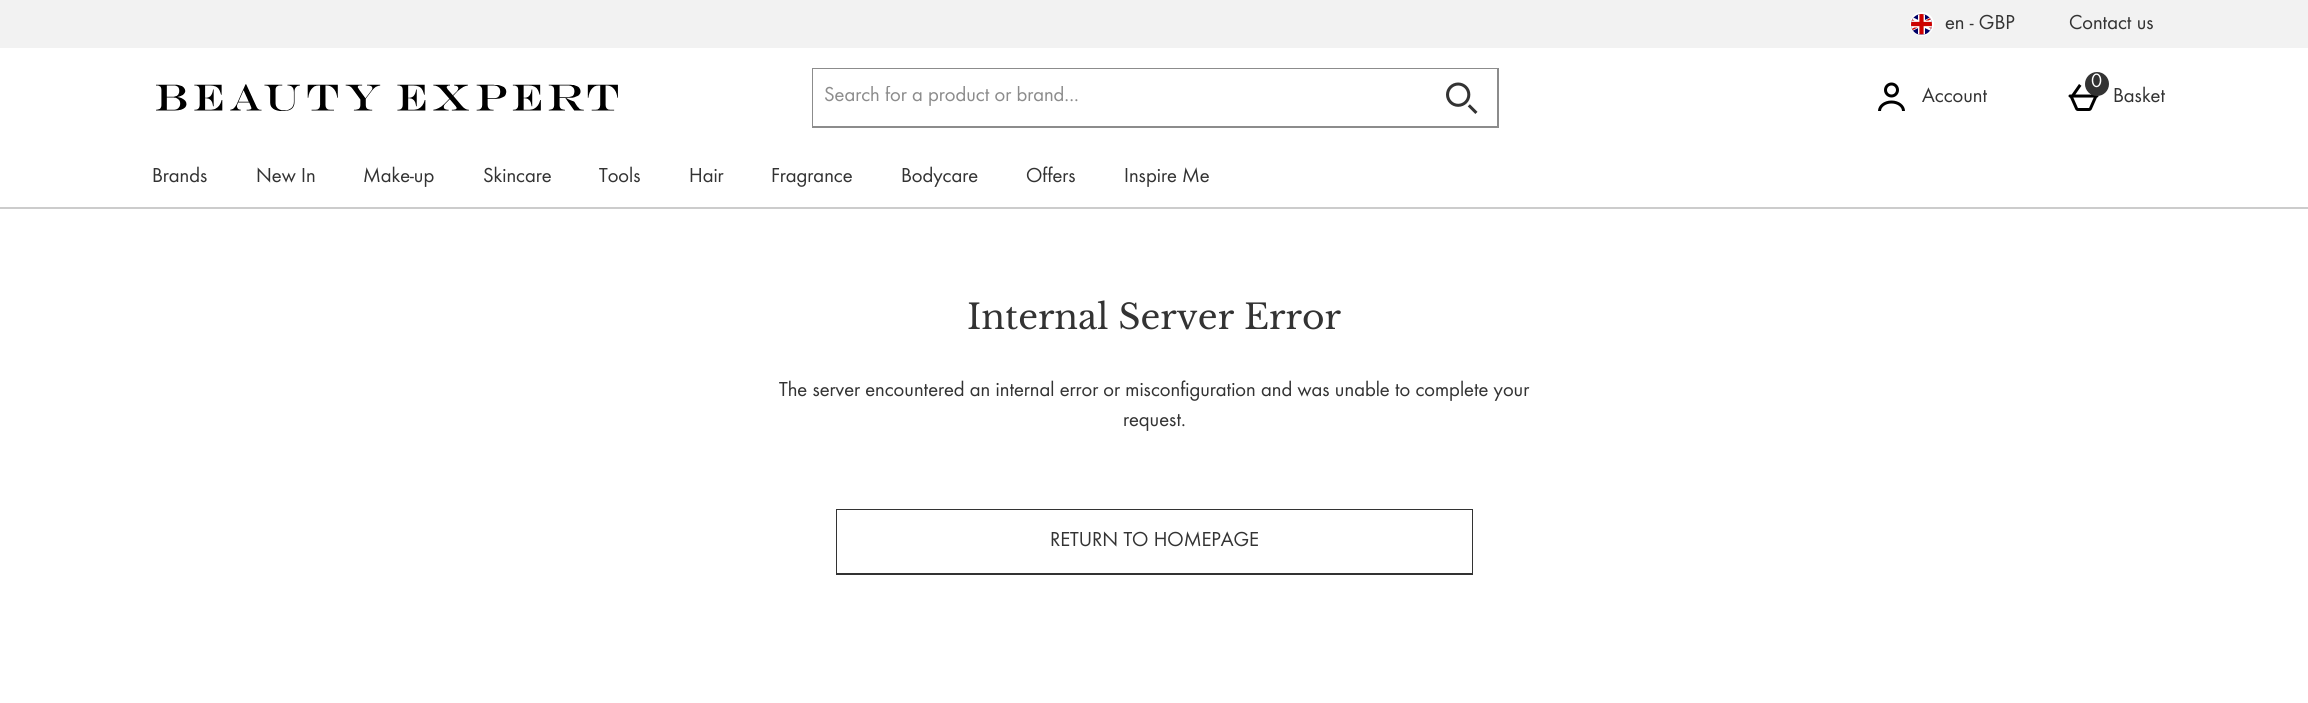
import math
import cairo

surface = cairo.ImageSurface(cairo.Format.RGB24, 2308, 703)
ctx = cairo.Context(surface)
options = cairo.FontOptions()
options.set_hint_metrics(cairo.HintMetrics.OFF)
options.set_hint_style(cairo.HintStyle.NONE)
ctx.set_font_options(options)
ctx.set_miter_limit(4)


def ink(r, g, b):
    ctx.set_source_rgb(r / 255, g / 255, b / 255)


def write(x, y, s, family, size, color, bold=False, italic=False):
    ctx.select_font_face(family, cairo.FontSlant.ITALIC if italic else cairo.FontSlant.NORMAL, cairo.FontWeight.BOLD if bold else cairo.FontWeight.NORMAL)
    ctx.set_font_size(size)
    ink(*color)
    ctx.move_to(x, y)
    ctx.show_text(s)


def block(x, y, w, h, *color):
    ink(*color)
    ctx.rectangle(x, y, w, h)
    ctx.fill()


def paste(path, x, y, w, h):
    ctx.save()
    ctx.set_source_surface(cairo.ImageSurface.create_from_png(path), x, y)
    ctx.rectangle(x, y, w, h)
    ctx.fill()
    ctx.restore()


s1 = dict(family="Futura", size=21, color=(51, 51, 51))
s2 = dict(family="Futura", size=21, color=(140, 140, 140))
s3 = dict(family="Futura", size=20, color=(255, 255, 255))
s4 = dict(family="Libre Baskerville", size=34.5, color=(51, 51, 51))

ink(255, 255, 255)
ctx.paint()
block(0, 0, 2308, 48, 242, 242, 242)
ctx.arc(1922, 24, 11, 0, 2 * math.pi)
ink(255, 255, 255)
ctx.stroke()
paste("pic1.png", 1911, 14, 21, 21)
write(1945, 29, "en - GBP", **s1)
write(2069, 29, "Contact us", **s1)
paste("pic2.png", 156, 84, 462, 27)
ctx.rectangle(813, 69, 685, 58)
ink(140, 140, 140)
ctx.stroke()
block(813, 69, 612, 57, 255, 255, 255)
ctx.save()
ctx.rectangle(825, 86, 534, 25)
ctx.clip()
write(824, 101, "Search for a product or brand...", **s2)
ctx.restore()
block(1425, 69, 72, 1, 255, 255, 255)
paste("pic3.png", 1446, 82, 32, 32)
paste("pic4.png", 1878, 82, 27, 29)
write(1922, 102, "Account", **s1)
paste("pic5.png", 2068, 84, 31, 27)
ctx.arc(2097, 84, 12, 0, 2 * math.pi)
ctx.fill()
write(2091, 87, "0", **s3)
write(2113, 102, "Basket", **s1)
block(0, 207, 2308, 2, 204, 204, 204)
write(152, 182, "Brands", **s1)
write(256, 182, "New In", **s1)
write(363, 182, "Make-up", **s1)
write(483, 182, "Skincare", **s1)
write(599, 182, "Tools", **s1)
write(689, 182, "Hair", **s1)
write(771, 182, "Fragrance", **s1)
write(901, 182, "Bodycare", **s1)
write(1026, 182, "Offers", **s1)
write(1124, 182, "Inspire Me", **s1)
write(967, 329, "Internal Server Error", **s4)
write(779, 396, "The server encountered an internal error or misconfiguration and was unable to complete your", **s1)
write(1123, 426, "request.", **s1)
ctx.rectangle(837, 510, 635, 64)
ctx.stroke()
block(837, 510, 635, 63, 255, 255, 255)
write(1050, 546, "RETURN TO HOMEPAGE", **s1)
surface.write_to_png("screenshot.png")
